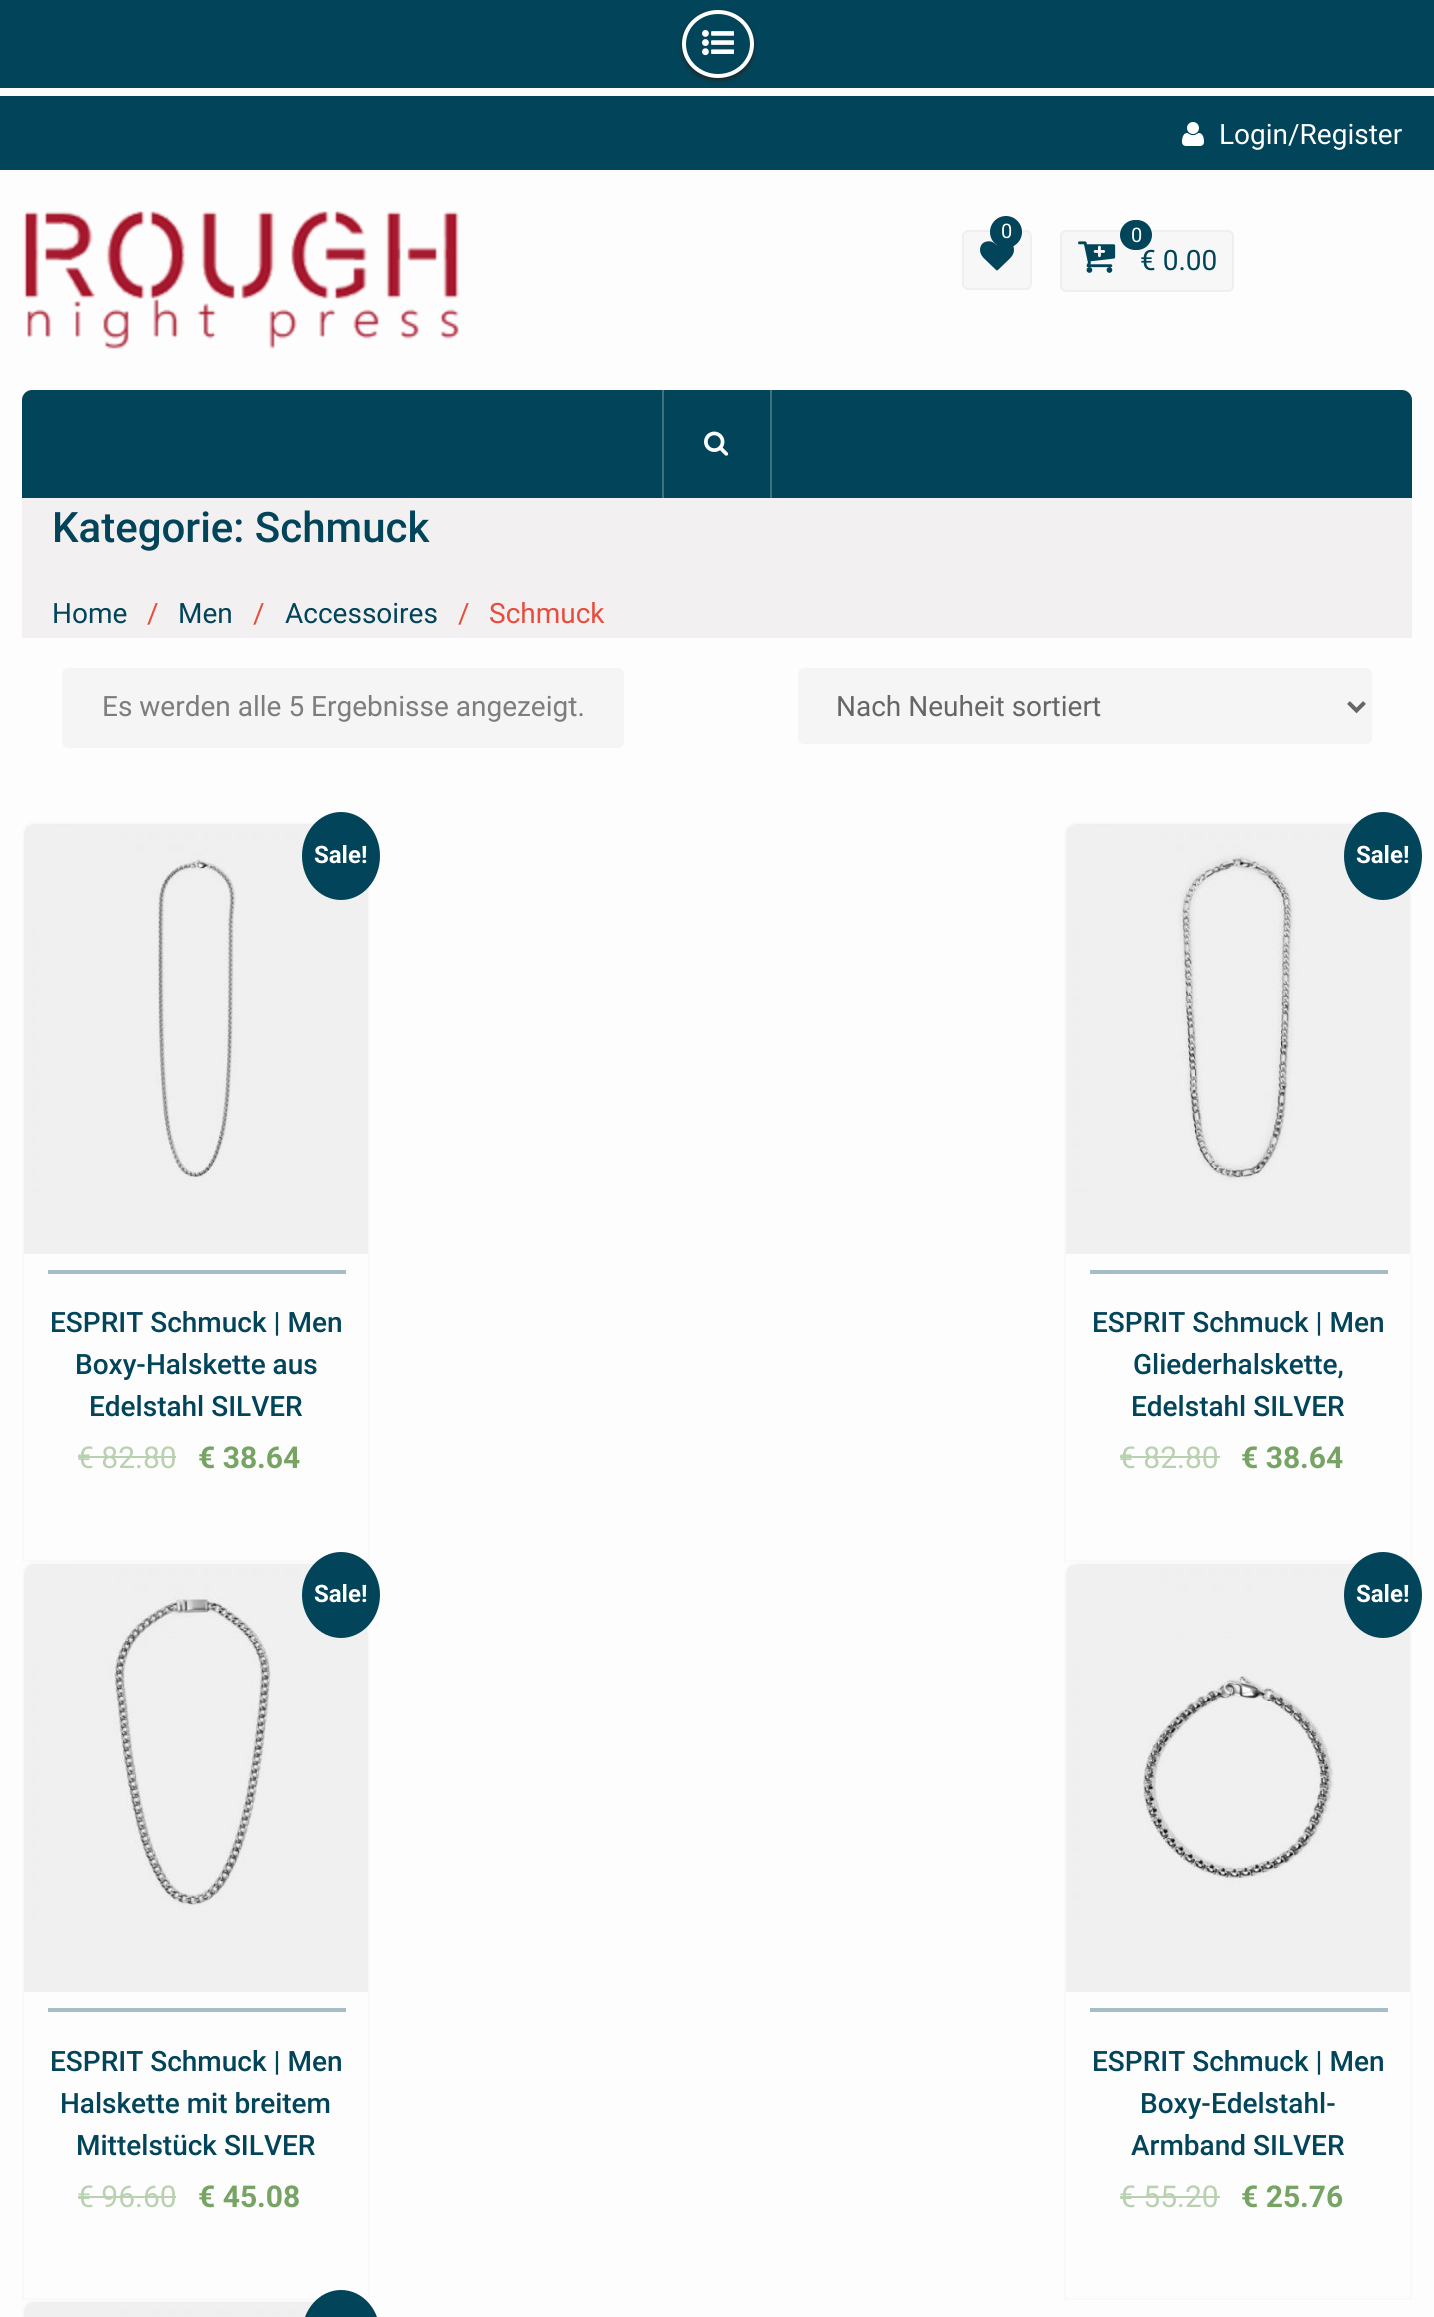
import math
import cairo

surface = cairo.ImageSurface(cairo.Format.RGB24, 1434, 2317)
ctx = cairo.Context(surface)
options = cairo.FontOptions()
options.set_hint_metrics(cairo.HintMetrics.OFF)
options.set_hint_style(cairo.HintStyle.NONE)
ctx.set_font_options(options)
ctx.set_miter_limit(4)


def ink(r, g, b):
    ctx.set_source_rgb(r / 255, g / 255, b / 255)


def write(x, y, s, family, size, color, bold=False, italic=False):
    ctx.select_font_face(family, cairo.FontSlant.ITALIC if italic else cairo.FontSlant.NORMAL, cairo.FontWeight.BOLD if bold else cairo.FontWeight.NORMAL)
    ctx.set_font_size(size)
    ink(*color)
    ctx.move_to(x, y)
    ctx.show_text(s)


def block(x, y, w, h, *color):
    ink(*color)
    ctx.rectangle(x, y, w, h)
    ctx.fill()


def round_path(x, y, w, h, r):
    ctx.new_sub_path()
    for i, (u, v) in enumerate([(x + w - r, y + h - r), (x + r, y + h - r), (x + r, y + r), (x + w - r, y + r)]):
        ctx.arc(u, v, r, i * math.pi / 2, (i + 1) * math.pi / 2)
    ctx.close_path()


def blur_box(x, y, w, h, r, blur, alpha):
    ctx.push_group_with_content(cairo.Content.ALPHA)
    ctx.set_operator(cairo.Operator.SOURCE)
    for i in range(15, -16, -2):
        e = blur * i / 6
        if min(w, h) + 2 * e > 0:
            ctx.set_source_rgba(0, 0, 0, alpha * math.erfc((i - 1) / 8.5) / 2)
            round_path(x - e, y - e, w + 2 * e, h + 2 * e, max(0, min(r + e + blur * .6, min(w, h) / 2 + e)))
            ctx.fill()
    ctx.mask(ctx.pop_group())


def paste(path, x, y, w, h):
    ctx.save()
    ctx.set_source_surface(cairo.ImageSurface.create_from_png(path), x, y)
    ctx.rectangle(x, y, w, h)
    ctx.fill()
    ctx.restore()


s1 = dict(family="Roboto", size=28, color=(255, 255, 255))
s2 = dict(family="Roboto", size=20, color=(255, 255, 255))
s3 = dict(family="Roboto", size=28, color=(2, 68, 89))
s4 = dict(family="Roboto Medium", size=42, color=(2, 68, 89))
s5 = dict(family="Roboto", size=28, color=(231, 76, 60))
s6 = dict(family="Roboto", size=28, color=(125, 125, 125))
s7 = dict(family="Roboto", size=28, color=(102, 102, 102))
s8 = dict(family="Roboto", size=24, color=(255, 255, 255), bold=True)
s9 = dict(family="Roboto Medium", size=28, color=(2, 68, 89))
s10 = dict(family="Roboto", size=30, color=(186, 209, 177))
s11 = dict(family="Roboto", size=30, color=(119, 164, 100), bold=True)

ink(253, 253, 253)
ctx.paint()
block(0, 0, 1434, 88, 2, 68, 89)
ctx.save()
ctx.set_fill_rule(cairo.FillRule.EVEN_ODD)
ctx.new_path()
ctx.move_to(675, 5)
ctx.line_to(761, 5)
ctx.line_to(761, 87)
ctx.line_to(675, 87)
ctx.close_path()
ctx.move_to(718, 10)
ctx.curve_to(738, 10, 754, 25, 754, 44)
ctx.curve_to(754, 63, 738, 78, 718, 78)
ctx.curve_to(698, 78, 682, 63, 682, 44)
ctx.curve_to(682, 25, 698, 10, 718, 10)
ctx.close_path()
ctx.clip()
ink(36, 36, 36)
blur_box(682, 12, 72, 68, 34, 2, 1)
ctx.restore()
ctx.new_path()
ctx.move_to(718, 12)
ctx.curve_to(737, 12, 752, 26.5, 752, 44)
ctx.curve_to(752, 61.5, 737, 76, 718, 76)
ctx.curve_to(699, 76, 684, 61.5, 684, 44)
ctx.curve_to(684, 26.5, 699, 12, 718, 12)
ctx.close_path()
ink(255, 255, 254)
ctx.set_line_width(4)
ctx.stroke()
paste("pic1.png", 702, 30, 32, 26)
block(0, 96, 1434, 74, 2, 68, 89)
paste("pic2.png", 1182, 122, 22, 24)
write(1219, 144, "Login/Register", **s1)
paste("pic3.png", 23, 211, 436, 138)
ink(247, 247, 247)
round_path(963, 231, 68, 58, 5)
ctx.fill_preserve()
ink(239, 239, 239)
ctx.set_line_width(2)
ctx.stroke()
paste("pic4.png", 980, 241, 34, 30)
ink(2, 68, 89)
ctx.arc(1006, 232, 16, 0, 2 * math.pi)
ctx.fill()
write(1001, 238, "0", **s2)
ink(247, 247, 247)
round_path(1061, 231, 172, 60, 5)
ctx.fill_preserve()
ink(239, 239, 239)
ctx.stroke()
paste("pic5.png", 1078, 241, 38, 32)
ink(2, 68, 89)
round_path(1120, 220, 32, 30, 15)
ctx.fill()
write(1131, 242, "0", **s2)
write(1140, 270, "€ 0.00", **s3)
ctx.new_path()
ctx.move_to(32, 390)
ctx.line_to(1402, 390)
ctx.curve_to(1407.5, 390, 1412, 394.5, 1412, 400)
ctx.line_to(1412, 498)
ctx.line_to(22, 498)
ctx.line_to(22, 400)
ctx.curve_to(22, 394.5, 26.5, 390, 32, 390)
ctx.close_path()
ctx.fill()
block(770, 390, 2, 108, 63, 113, 129)
block(662, 390, 2, 108, 63, 113, 129)
paste("pic6.png", 704, 431, 25, 25)
block(22, 498, 1390, 140, 242, 240, 240)
write(52, 542, "Kategorie: Schmuck", **s4)
write(52, 623, "Home", **s3)
write(147, 623, "/", **s5)
write(178, 623, "Men", **s3)
write(253, 623, "/", **s5)
write(285, 623, "Accessoires", **s3)
write(458, 623, "/", **s5)
write(489, 623, "Schmuck", **s5)
ink(245, 245, 245)
round_path(62, 668, 562, 80, 6)
ctx.fill()
write(102, 716, "Es werden alle 5 Ergebnisse angezeigt.", **s6)
ink(245, 245, 245)
round_path(798, 668, 574, 76, 6)
ctx.fill()
ctx.new_path()
ctx.move_to(1348.5, 702.5)
ctx.line_to(1356.5, 710.5)
ctx.line_to(1364.5, 702.5)
ink(102, 102, 102)
ctx.set_line_width(4)
ctx.stroke()
write(836, 716, "Nach Neuheit sortiert", **s7)
ctx.new_path()
ctx.move_to(34, 823)
ctx.line_to(356, 823)
ctx.curve_to(363, 823, 369, 829, 369, 836)
ctx.line_to(369, 1561)
ctx.line_to(23, 1561)
ctx.line_to(23, 834)
ctx.curve_to(23, 828, 28, 823, 34, 823)
ctx.close_path()
ink(249, 249, 249)
ctx.set_line_width(2)
ctx.stroke()
paste("pic7.png", 24, 824, 344, 430)
ink(2, 68, 89)
ctx.new_path()
ctx.move_to(341, 812)
ctx.curve_to(362.5, 812, 380, 831.5, 380, 856)
ctx.curve_to(380, 880.5, 362.5, 900, 341, 900)
ctx.curve_to(319.5, 900, 302, 880.5, 302, 856)
ctx.curve_to(302, 831.5, 319.5, 812, 341, 812)
ctx.close_path()
ctx.fill()
write(314, 863, "Sale!", **s8)
block(48, 1270, 298, 4, 165, 189, 196)
write(50, 1332, "ESPRIT Schmuck | Men", **s9)
write(75, 1374, "Boxy-Halskette aus", **s9)
write(89, 1416, "Edelstahl SILVER", **s9)
write(77, 1468, "€ 82.80", **s10)
block(78, 1456, 98, 2, 186, 209, 177)
write(198, 1468, "€ 38.64", **s11)
ctx.new_path()
ctx.move_to(1076, 823)
ctx.line_to(1398, 823)
ctx.curve_to(1405, 823, 1411, 829, 1411, 836)
ctx.line_to(1411, 1561)
ctx.line_to(1065, 1561)
ctx.line_to(1065, 834)
ctx.curve_to(1065, 828, 1070, 823, 1076, 823)
ctx.close_path()
ink(249, 249, 249)
ctx.stroke()
paste("pic8.png", 1066, 824, 344, 430)
ink(2, 68, 89)
ctx.new_path()
ctx.move_to(1383, 812)
ctx.curve_to(1404.5, 812, 1422, 831.5, 1422, 856)
ctx.curve_to(1422, 880.5, 1404.5, 900, 1383, 900)
ctx.curve_to(1361.5, 900, 1344, 880.5, 1344, 856)
ctx.curve_to(1344, 831.5, 1361.5, 812, 1383, 812)
ctx.close_path()
ctx.fill()
write(1356, 863, "Sale!", **s8)
block(1090, 1270, 298, 4, 165, 189, 196)
write(1092, 1332, "ESPRIT Schmuck | Men", **s9)
write(1133, 1374, "Gliederhalskette,", **s9)
write(1131, 1416, "Edelstahl SILVER", **s9)
write(1119, 1468, "€ 82.80", **s10)
block(1120, 1456, 100, 2, 186, 209, 177)
write(1241, 1468, "€ 38.64", **s11)
ctx.new_path()
ctx.move_to(34, 1563)
ctx.line_to(356, 1563)
ctx.curve_to(363, 1563, 369, 1569, 369, 1576)
ctx.line_to(369, 2299)
ctx.line_to(23, 2299)
ctx.line_to(23, 1574)
ctx.curve_to(23, 1568, 28, 1563, 34, 1563)
ctx.close_path()
ink(249, 249, 249)
ctx.stroke()
paste("pic9.png", 24, 1564, 344, 428)
ink(2, 68, 89)
ctx.new_path()
ctx.move_to(341, 1552)
ctx.curve_to(362.5, 1552, 380, 1571.5, 380, 1595)
ctx.curve_to(380, 1618.5, 362.5, 1638, 341, 1638)
ctx.curve_to(319.5, 1638, 302, 1618.5, 302, 1595)
ctx.curve_to(302, 1571.5, 319.5, 1552, 341, 1552)
ctx.close_path()
ctx.fill()
write(314, 1602, "Sale!", **s8)
block(48, 2008, 298, 4, 165, 189, 196)
write(50, 2071, "ESPRIT Schmuck | Men", **s9)
write(60, 2113, "Halskette mit breitem", **s9)
write(76, 2155, "Mittelstück SILVER", **s9)
write(77, 2207, "€ 96.60", **s10)
block(78, 2196, 98, 2, 186, 209, 177)
write(198, 2207, "€ 45.08", **s11)
ctx.new_path()
ctx.move_to(1076, 1563)
ctx.line_to(1398, 1563)
ctx.curve_to(1405, 1563, 1411, 1569, 1411, 1576)
ctx.line_to(1411, 2299)
ctx.line_to(1065, 2299)
ctx.line_to(1065, 1574)
ctx.curve_to(1065, 1568, 1070, 1563, 1076, 1563)
ctx.close_path()
ink(249, 249, 249)
ctx.stroke()
paste("pic10.png", 1066, 1564, 344, 428)
ink(2, 68, 89)
ctx.new_path()
ctx.move_to(1383, 1552)
ctx.curve_to(1404.5, 1552, 1422, 1571.5, 1422, 1595)
ctx.curve_to(1422, 1618.5, 1404.5, 1638, 1383, 1638)
ctx.curve_to(1361.5, 1638, 1344, 1618.5, 1344, 1595)
ctx.curve_to(1344, 1571.5, 1361.5, 1552, 1383, 1552)
ctx.close_path()
ctx.fill()
write(1356, 1602, "Sale!", **s8)
block(1090, 2008, 298, 4, 165, 189, 196)
write(1092, 2071, "ESPRIT Schmuck | Men", **s9)
write(1140, 2113, "Boxy-Edelstahl-", **s9)
write(1131, 2155, "Armband SILVER", **s9)
write(1119, 2207, "€ 55.20", **s10)
block(1120, 2196, 100, 2, 186, 209, 177)
write(1241, 2207, "€ 25.76", **s11)
ctx.new_path()
ctx.move_to(34, 2301)
ctx.line_to(356, 2301)
ctx.curve_to(363, 2301, 369, 2307, 369, 2314)
ctx.line_to(369, 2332)
ctx.line_to(23, 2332)
ctx.line_to(23, 2312)
ctx.curve_to(23, 2306, 28, 2301, 34, 2301)
ctx.close_path()
ink(249, 249, 249)
ctx.stroke()
paste("pic11.png", 24, 2302, 291, 15)
ink(2, 68, 89)
ctx.new_path()
ctx.move_to(341, 2290)
ctx.curve_to(362.5, 2290, 380, 2309.5, 380, 2334)
ctx.curve_to(380, 2358.5, 362.5, 2378, 341, 2378)
ctx.curve_to(319.5, 2378, 302, 2358.5, 302, 2334)
ctx.curve_to(302, 2309.5, 319.5, 2290, 341, 2290)
ctx.close_path()
ctx.fill()
surface.write_to_png("screenshot.png")
